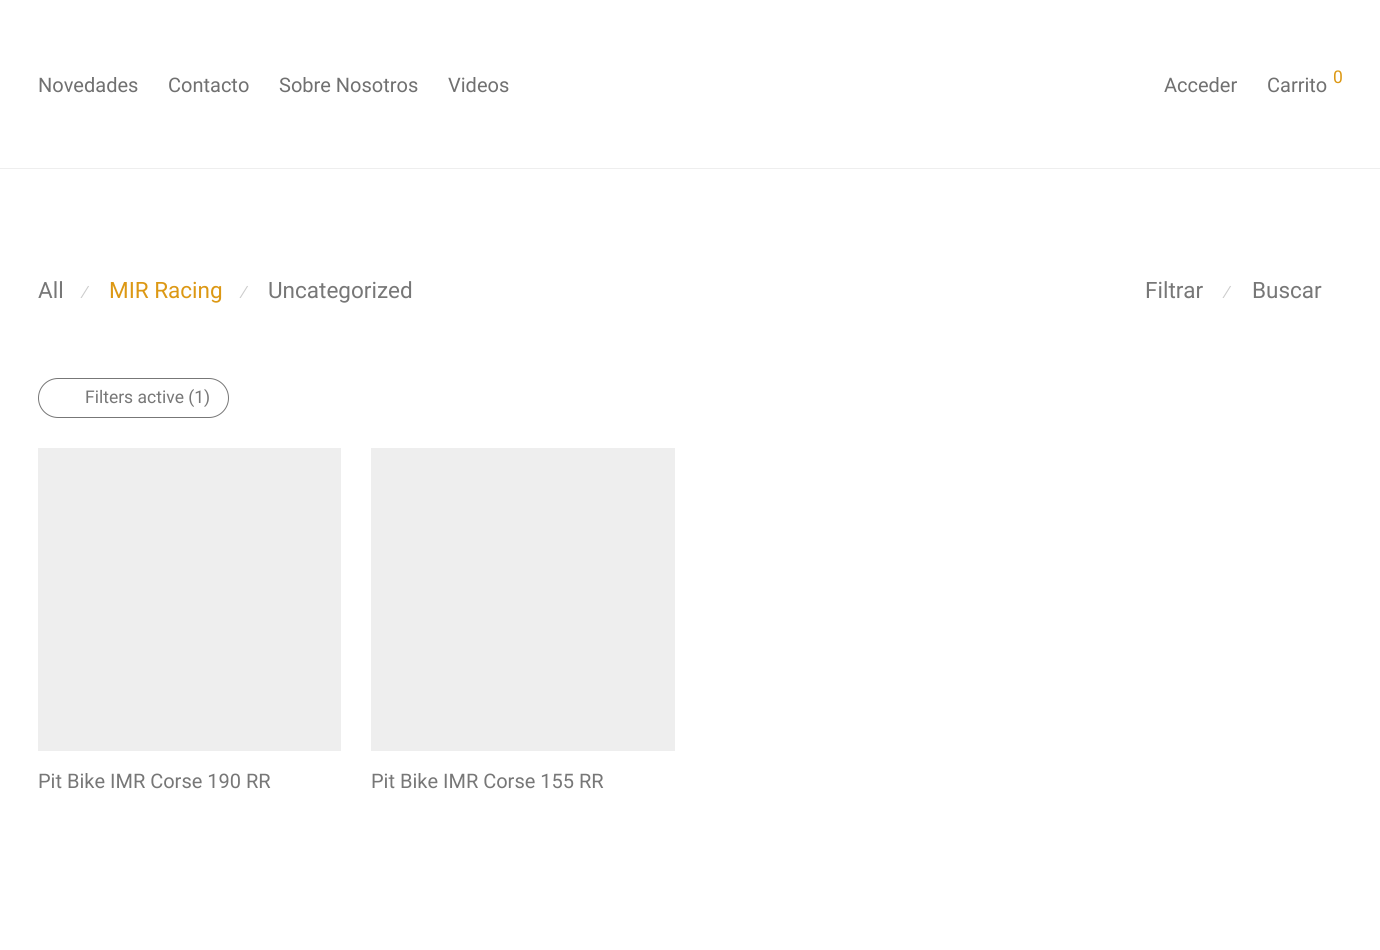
import math
import cairo

surface = cairo.ImageSurface(cairo.Format.RGB24, 1380, 950)
ctx = cairo.Context(surface)
options = cairo.FontOptions()
options.set_hint_metrics(cairo.HintMetrics.OFF)
options.set_hint_style(cairo.HintStyle.NONE)
ctx.set_font_options(options)
ctx.set_miter_limit(4)


def ink(r, g, b):
    ctx.set_source_rgb(r / 255, g / 255, b / 255)


def write(x, y, s, family, size, color, bold=False, italic=False):
    ctx.select_font_face(family, cairo.FontSlant.ITALIC if italic else cairo.FontSlant.NORMAL, cairo.FontWeight.BOLD if bold else cairo.FontWeight.NORMAL)
    ctx.set_font_size(size)
    ink(*color)
    ctx.move_to(x, y)
    ctx.show_text(s)


def block(x, y, w, h, *color):
    ink(*color)
    ctx.rectangle(x, y, w, h)
    ctx.fill()


def round_path(x, y, w, h, r):
    ctx.new_sub_path()
    for i, (u, v) in enumerate([(x + w - r, y + h - r), (x + r, y + h - r), (x + r, y + r), (x + w - r, y + r)]):
        ctx.arc(u, v, r, i * math.pi / 2, (i + 1) * math.pi / 2)
    ctx.close_path()


s1 = dict(family="Roboto", size=20, color=(112, 112, 112))
s2 = dict(family="Roboto", size=17.5, color=(220, 152, 20))
s3 = dict(family="Roboto", size=22.5, color=(119, 119, 119))
s4 = dict(family="Liberation Sans", size=17.5, color=(204, 204, 204))
s5 = dict(family="Roboto", size=22.5, color=(220, 152, 20))
s6 = dict(family="Roboto", size=17.5, color=(119, 119, 119))
s7 = dict(family="Roboto", size=20, color=(119, 119, 119))

ink(255, 255, 255)
ctx.paint()
block(0, 168, 1380, 1, 238, 238, 238)
write(38, 92, "Novedades", **s1)
write(168, 92, "Contacto", **s1)
write(279, 92, "Sobre Nosotros", **s1)
write(448, 92, "Videos", **s1)
write(1164, 92, "Acceder", **s1)
write(1267, 92, "Carrito", **s1)
write(1333, 83, "0", **s2)
write(38, 298, "All", **s3)
write(84, 298, "⁄", **s4)
write(109, 298, "MIR Racing", **s5)
write(243, 298, "⁄", **s4)
write(268, 298, "Uncategorized", **s3)
write(1145, 298, "Filtrar", **s3)
write(1226, 298, "⁄", **s4)
write(1252, 298, "Buscar", **s3)
round_path(38.5, 378.5, 190, 39, 19.5)
ctx.set_line_width(1)
ctx.stroke()
write(85, 403, "Filters active (1)", **s6)
block(38, 448, 303, 303, 238, 238, 238)
write(38, 788, "Pit Bike IMR Corse 190 RR", **s7)
block(371, 448, 304, 303, 238, 238, 238)
write(371, 788, "Pit Bike IMR Corse 155 RR", **s7)
surface.write_to_png("screenshot.png")
